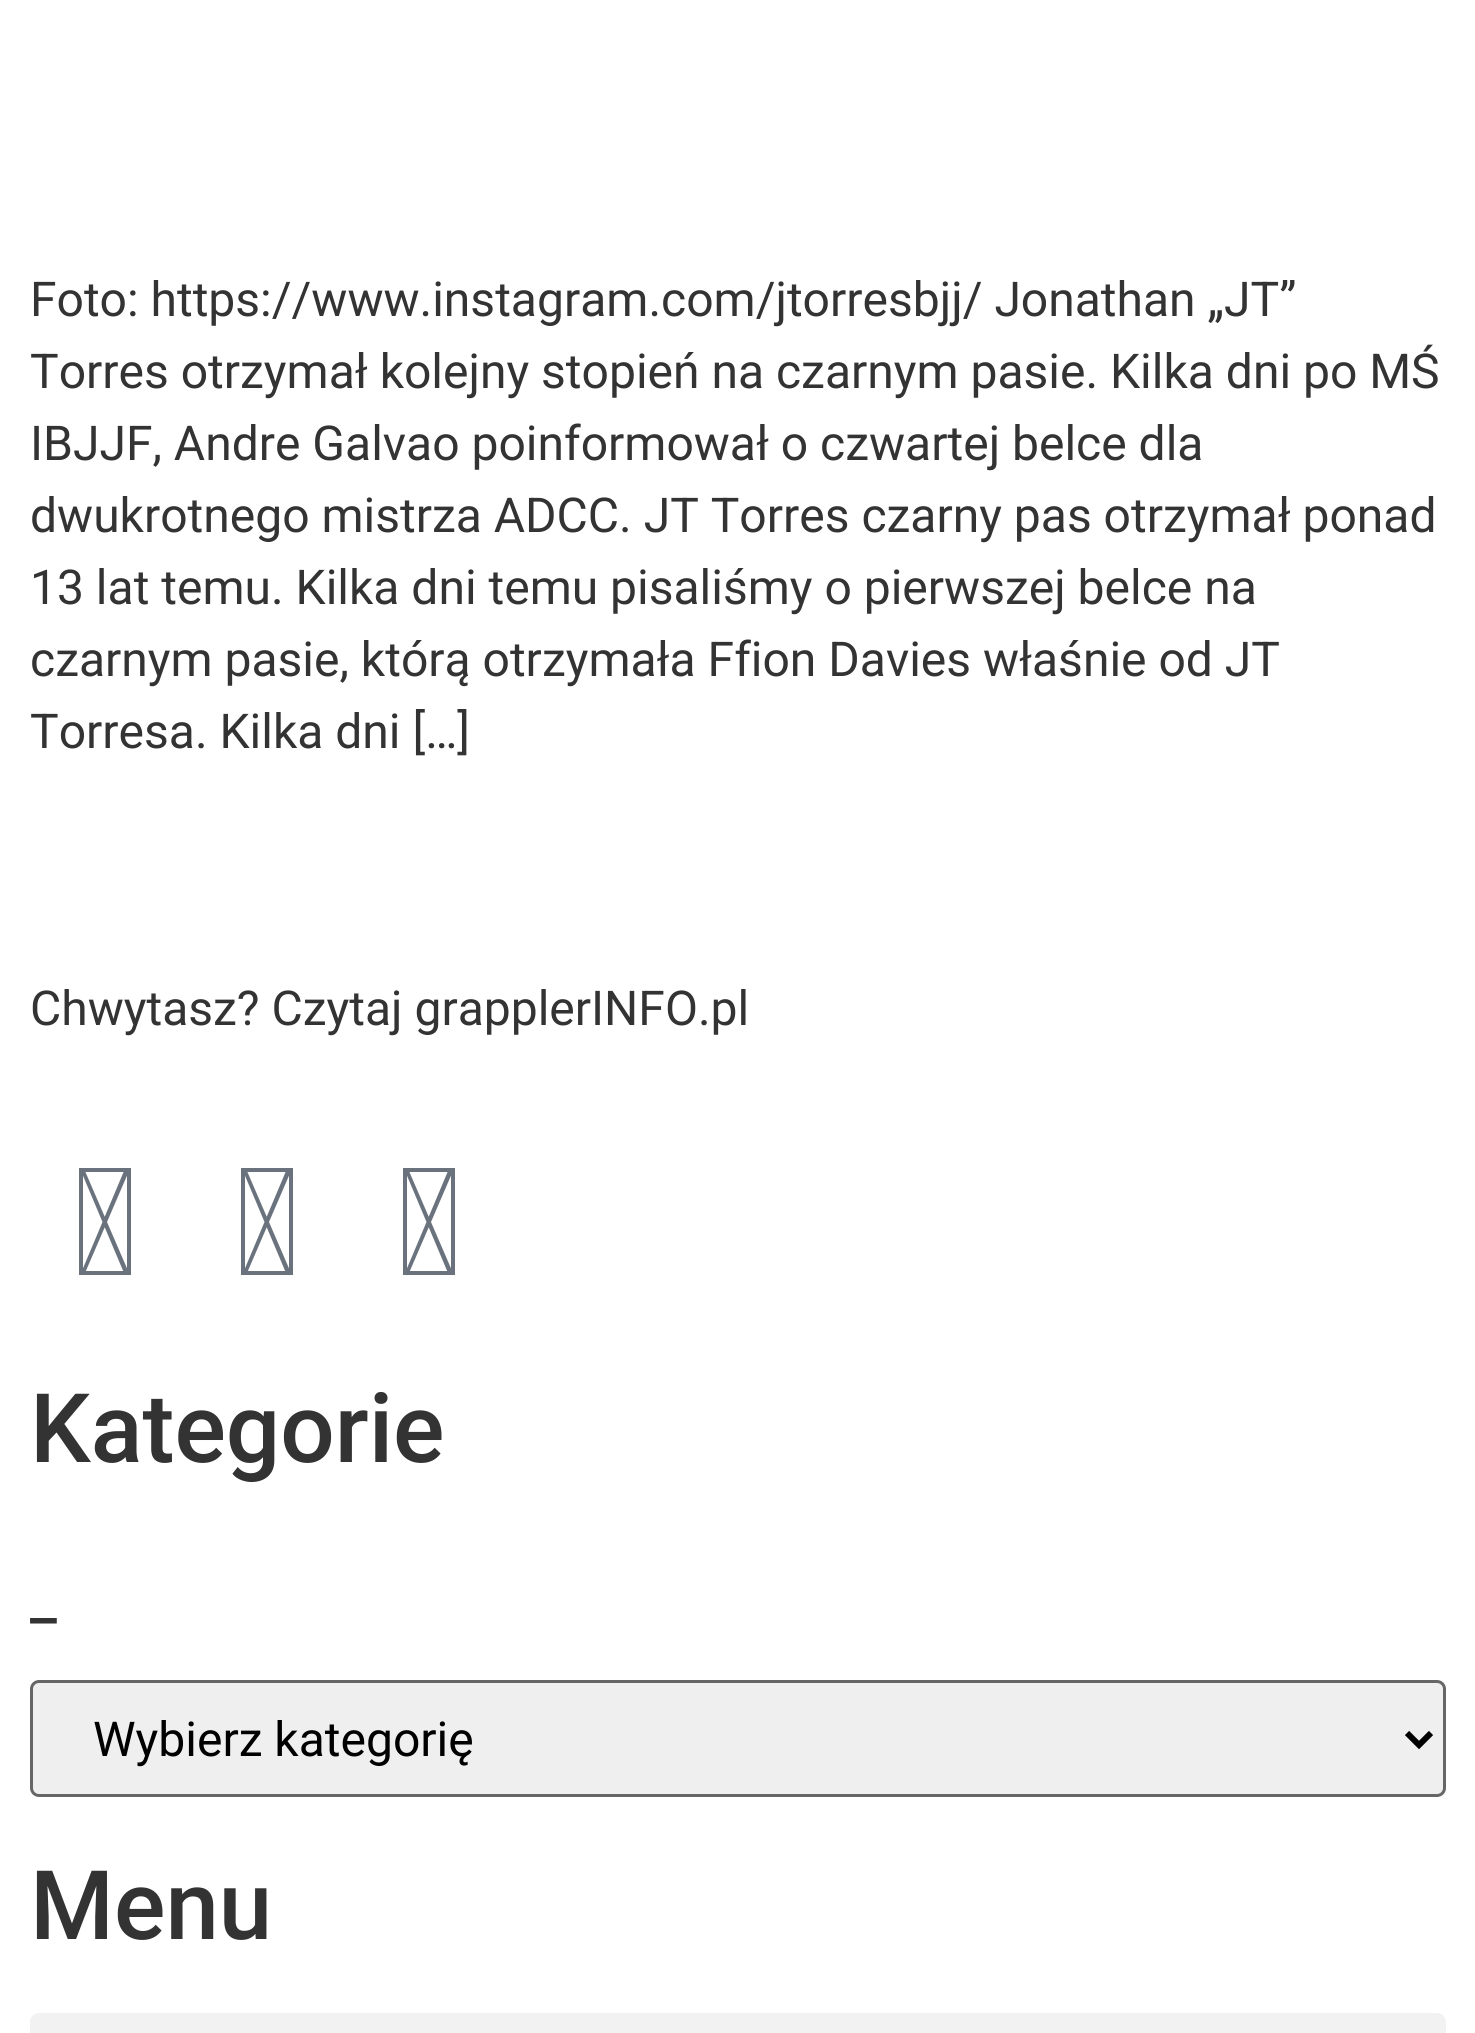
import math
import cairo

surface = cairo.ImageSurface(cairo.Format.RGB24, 1475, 2033)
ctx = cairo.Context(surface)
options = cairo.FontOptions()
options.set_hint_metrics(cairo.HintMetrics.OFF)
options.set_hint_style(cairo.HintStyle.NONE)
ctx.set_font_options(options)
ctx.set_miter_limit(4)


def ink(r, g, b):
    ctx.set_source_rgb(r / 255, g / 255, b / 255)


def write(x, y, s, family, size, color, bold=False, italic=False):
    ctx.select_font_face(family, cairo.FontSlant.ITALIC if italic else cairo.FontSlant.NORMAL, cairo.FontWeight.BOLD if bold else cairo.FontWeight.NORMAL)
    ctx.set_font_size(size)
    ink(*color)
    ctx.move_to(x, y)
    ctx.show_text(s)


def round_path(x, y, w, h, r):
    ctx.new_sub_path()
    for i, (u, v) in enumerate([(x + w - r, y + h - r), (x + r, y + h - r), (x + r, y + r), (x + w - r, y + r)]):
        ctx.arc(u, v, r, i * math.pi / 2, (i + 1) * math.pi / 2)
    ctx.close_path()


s1 = dict(family="Roboto", size=48, color=(51, 51, 51))
s2 = dict(family="Roboto Medium", size=96, color=(51, 51, 51))
s3 = dict(family="Roboto Medium", size=60, color=(51, 51, 51))
s4 = dict(family="Roboto", size=48, color=(0, 0, 0))

ink(255, 255, 255)
ctx.paint()
write(30, 316, "Foto: https://www.instagram.com/jtorresbjj/ Jonathan „JT”", **s1)
write(30, 388, "Torres otrzymał kolejny stopień na czarnym pasie. Kilka dni po MŚ", **s1)
write(30, 460, "IBJJF, Andre Galvao poinformował o czwartej belce dla", **s1)
write(30, 532, "dwukrotnego mistrza ADCC. JT Torres czarny pas otrzymał ponad", **s1)
write(30, 604, "13 lat temu. Kilka dni temu pisaliśmy o pierwszej belce na", **s1)
write(30, 676, "czarnym pasie, którą otrzymała Ffion Davies właśnie od JT", **s1)
write(30, 748, "Torresa. Kilka dni […]", **s1)
write(30, 1025, "Chwytasz? Czytaj grapplerINFO.pl", **s1)
ink(105, 114, 125)
ctx.new_path()
ctx.move_to(129, 1168)
ctx.line_to(129, 1172)
ctx.line_to(81, 1172)
ctx.line_to(81, 1168)
ctx.close_path()
ctx.move_to(83, 1168)
ctx.line_to(83, 1275)
ctx.line_to(79, 1275)
ctx.line_to(79, 1168)
ctx.close_path()
ctx.move_to(131, 1168)
ctx.line_to(131, 1275)
ctx.line_to(127, 1275)
ctx.line_to(127, 1168)
ctx.close_path()
ctx.move_to(129, 1271)
ctx.line_to(129, 1275)
ctx.line_to(81, 1275)
ctx.line_to(81, 1271)
ctx.close_path()
ctx.move_to(129, 1171)
ctx.line_to(85, 1273)
ctx.line_to(81, 1273)
ctx.line_to(124, 1171)
ctx.close_path()
ctx.move_to(124, 1273)
ctx.line_to(81, 1171)
ctx.line_to(85, 1171)
ctx.line_to(129, 1273)
ctx.close_path()
ctx.fill()
ctx.new_path()
ctx.move_to(291, 1168)
ctx.line_to(291, 1172)
ctx.line_to(243, 1172)
ctx.line_to(243, 1168)
ctx.close_path()
ctx.move_to(245, 1168)
ctx.line_to(245, 1275)
ctx.line_to(241, 1275)
ctx.line_to(241, 1168)
ctx.close_path()
ctx.move_to(293, 1168)
ctx.line_to(293, 1275)
ctx.line_to(289, 1275)
ctx.line_to(289, 1168)
ctx.close_path()
ctx.move_to(291, 1271)
ctx.line_to(291, 1275)
ctx.line_to(243, 1275)
ctx.line_to(243, 1271)
ctx.close_path()
ctx.move_to(291, 1171)
ctx.line_to(247, 1273)
ctx.line_to(243, 1273)
ctx.line_to(286, 1171)
ctx.close_path()
ctx.move_to(286, 1273)
ctx.line_to(243, 1171)
ctx.line_to(247, 1171)
ctx.line_to(291, 1273)
ctx.close_path()
ctx.fill()
ctx.new_path()
ctx.move_to(453, 1168)
ctx.line_to(453, 1172)
ctx.line_to(405, 1172)
ctx.line_to(405, 1168)
ctx.close_path()
ctx.move_to(407, 1168)
ctx.line_to(407, 1275)
ctx.line_to(403, 1275)
ctx.line_to(403, 1168)
ctx.close_path()
ctx.move_to(455, 1168)
ctx.line_to(455, 1275)
ctx.line_to(451, 1275)
ctx.line_to(451, 1168)
ctx.close_path()
ctx.move_to(453, 1271)
ctx.line_to(453, 1275)
ctx.line_to(405, 1275)
ctx.line_to(405, 1271)
ctx.close_path()
ctx.move_to(453, 1171)
ctx.line_to(409, 1273)
ctx.line_to(405, 1273)
ctx.line_to(448, 1171)
ctx.close_path()
ctx.move_to(448, 1273)
ctx.line_to(405, 1171)
ctx.line_to(409, 1171)
ctx.line_to(453, 1273)
ctx.close_path()
ctx.fill()
write(30, 1462, "Kategorie", **s2)
write(30, 1618, "_", **s3)
ink(239, 239, 239)
round_path(31.5, 1681.5, 1413, 114, 7.5)
ctx.fill_preserve()
ink(102, 102, 102)
ctx.set_line_width(3)
ctx.stroke()
ctx.new_path()
ctx.move_to(1407, 1733)
ctx.line_to(1419, 1745)
ctx.line_to(1431, 1733)
ink(0, 0, 0)
ctx.set_line_width(6)
ctx.stroke()
write(93, 1756, "Wybierz kategorię", **s4)
write(30, 1939, "Menu", **s2)
ink(242, 242, 242)
round_path(30, 2013, 1416, 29, 9)
ctx.fill()
surface.write_to_png("screenshot.png")
